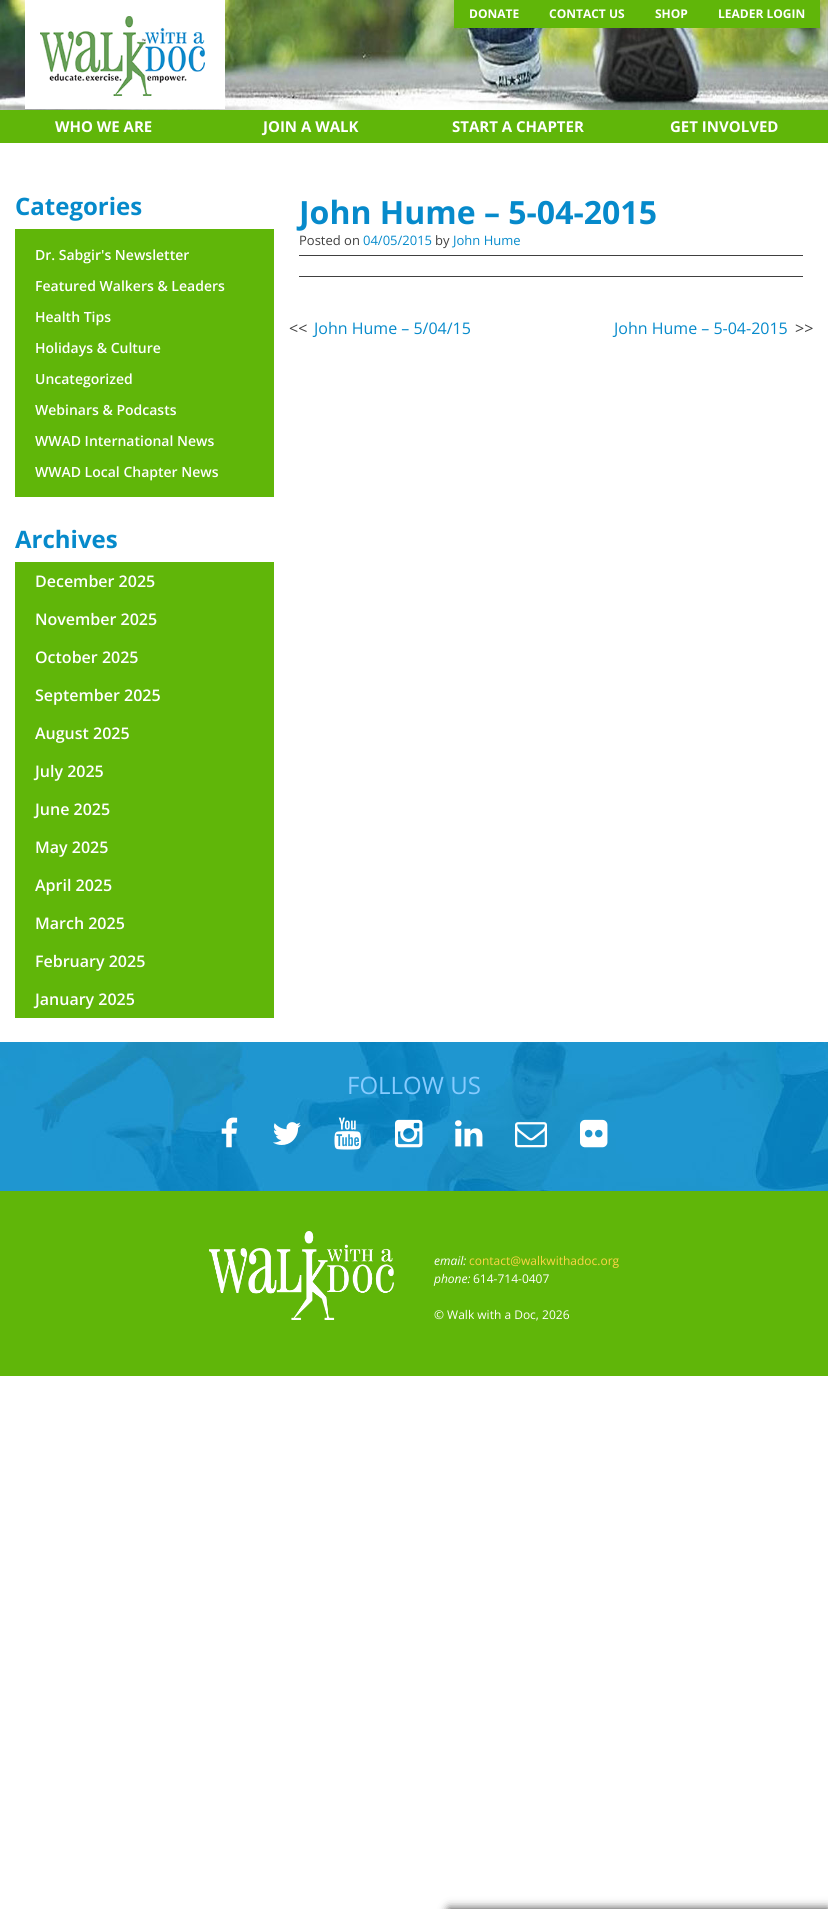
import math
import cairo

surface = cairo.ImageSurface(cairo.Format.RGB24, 828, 1909)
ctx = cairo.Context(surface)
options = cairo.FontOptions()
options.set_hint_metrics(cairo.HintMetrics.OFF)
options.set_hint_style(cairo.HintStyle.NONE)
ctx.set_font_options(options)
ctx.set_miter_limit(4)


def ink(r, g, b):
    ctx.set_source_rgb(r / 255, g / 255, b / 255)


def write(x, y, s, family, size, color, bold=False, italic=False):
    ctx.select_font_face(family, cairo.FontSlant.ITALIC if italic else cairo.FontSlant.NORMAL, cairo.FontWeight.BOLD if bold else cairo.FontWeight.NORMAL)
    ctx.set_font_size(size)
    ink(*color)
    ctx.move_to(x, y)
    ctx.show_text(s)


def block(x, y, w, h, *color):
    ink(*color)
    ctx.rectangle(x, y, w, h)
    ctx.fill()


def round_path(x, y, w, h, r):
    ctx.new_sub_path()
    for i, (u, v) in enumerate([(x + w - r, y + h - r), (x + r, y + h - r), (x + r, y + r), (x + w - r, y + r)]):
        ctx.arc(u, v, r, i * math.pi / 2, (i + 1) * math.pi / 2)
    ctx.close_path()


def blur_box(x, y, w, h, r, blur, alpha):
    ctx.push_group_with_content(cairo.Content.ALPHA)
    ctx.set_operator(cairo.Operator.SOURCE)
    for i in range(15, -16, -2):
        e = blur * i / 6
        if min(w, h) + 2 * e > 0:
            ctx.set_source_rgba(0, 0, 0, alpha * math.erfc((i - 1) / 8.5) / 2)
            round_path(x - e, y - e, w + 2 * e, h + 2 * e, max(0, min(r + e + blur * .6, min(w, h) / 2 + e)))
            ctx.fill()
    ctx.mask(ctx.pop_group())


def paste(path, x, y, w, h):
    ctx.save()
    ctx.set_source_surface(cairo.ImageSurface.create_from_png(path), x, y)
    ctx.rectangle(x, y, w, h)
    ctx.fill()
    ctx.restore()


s1 = dict(family="Open Sans", size=12, color=(255, 255, 255), bold=True)
s2 = dict(family="Open Sans", size=15, color=(255, 255, 255), bold=True)
s3 = dict(family="Open Sans", size=24, color=(6, 138, 203), bold=True)
s4 = dict(family="Open Sans SemiBold", size=14, color=(255, 255, 255))
s5 = dict(family="Open Sans SemiBold", size=16, color=(255, 255, 255))
s6 = dict(family="Open Sans", size=32, color=(6, 138, 203), bold=True)
s7 = dict(family="Open Sans", size=13, color=(64, 64, 64))
s8 = dict(family="Open Sans", size=13, color=(6, 138, 203))
s9 = dict(family="Open Sans", size=16, color=(64, 64, 64))
s10 = dict(family="Open Sans", size=16, color=(6, 138, 203))
s11 = dict(family="Open Sans", size=24, color=(134, 203, 255))
s12 = dict(family="Open Sans", size=12, color=(255, 255, 255), italic=True)
s13 = dict(family="Open Sans", size=12, color=(253, 212, 72))
s14 = dict(family="Open Sans", size=12, color=(255, 255, 255))

ink(255, 255, 255)
ctx.paint()
paste("pic1.png", 0, 0, 828, 110)
block(25, 0, 200, 109, 255, 255, 255)
paste("pic2.png", 40, 16, 165, 80)
block(454, 0, 366, 28, 96, 182, 9)
write(469, 18, "DONATE", **s1)
write(549, 18, "CONTACT US", **s1)
write(655, 18, "SHOP", **s1)
write(718, 18, "LEADER LOGIN", **s1)
block(0, 110, 828, 33, 96, 182, 9)
write(55, 132, "WHO WE ARE", **s2)
write(263, 132, "JOIN A WALK", **s2)
write(452, 132, "START A CHAPTER", **s2)
write(670, 132, "GET INVOLVED", **s2)
write(15, 215, "Categories", **s3)
block(15, 229, 259, 268, 96, 182, 9)
write(35, 260, "Dr. Sabgir's Newsletter", **s4)
write(35, 291, "Featured Walkers & Leaders", **s4)
write(35, 322, "Health Tips", **s4)
write(35, 353, "Holidays & Culture", **s4)
write(35, 384, "Uncategorized", **s4)
write(35, 415, "Webinars & Podcasts", **s4)
write(35, 446, "WWAD International News", **s4)
write(35, 477, "WWAD Local Chapter News", **s4)
write(15, 548, "Archives", **s3)
block(15, 562, 259, 456, 96, 182, 9)
write(35, 587, "December 2025", **s5)
write(35, 625, "November 2025", **s5)
write(35, 663, "October 2025", **s5)
write(35, 701, "September 2025", **s5)
write(35, 739, "August 2025", **s5)
write(35, 777, "July 2025", **s5)
write(35, 815, "June 2025", **s5)
write(35, 853, "May 2025", **s5)
write(35, 891, "April 2025", **s5)
write(35, 929, "March 2025", **s5)
write(35, 967, "February 2025", **s5)
write(35, 1005, "January 2025", **s5)
write(299, 224, "John Hume – 5-04-2015", **s6)
write(299, 245, "Posted on", **s7)
write(363, 245, "04/05/2015", **s8)
write(435, 245, "by", **s7)
write(453, 245, "John Hume", **s8)
block(299, 255, 504, 1, 64, 64, 64)
block(299, 276, 504, 1, 64, 64, 64)
write(289, 334, "<<", **s9)
write(314, 334, "John Hume – 5/04/15", **s10)
write(614, 334, "John Hume – 5-04-2015", **s10)
write(795, 334, ">>", **s9)
paste("pic3.png", 0, 1042, 828, 149)
write(347, 1094, "FOLLOW US", **s11)
paste("pic4.png", 221, 1117, 17, 31)
paste("pic5.png", 273, 1122, 28, 23)
paste("pic6.png", 334, 1117, 27, 33)
paste("pic7.png", 395, 1119, 28, 29)
paste("pic8.png", 455, 1120, 28, 27)
paste("pic9.png", 515, 1122, 32, 26)
paste("pic10.png", 580, 1119, 28, 29)
block(0, 1191, 828, 185, 96, 182, 9)
paste("pic11.png", 209, 1231, 185, 89)
write(434, 1265, "email:", **s12)
write(469, 1265, "contact@walkwithadoc.org", **s13)
write(434, 1283, "phone:", **s12)
write(473, 1283, "614-714-0407", **s14)
write(434, 1319, "© Walk with a Doc, 2026", **s14)
ink(51, 51, 51)
blur_box(449, 1909, 379, 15, 0, 5, 1)
surface.write_to_png("screenshot.png")
